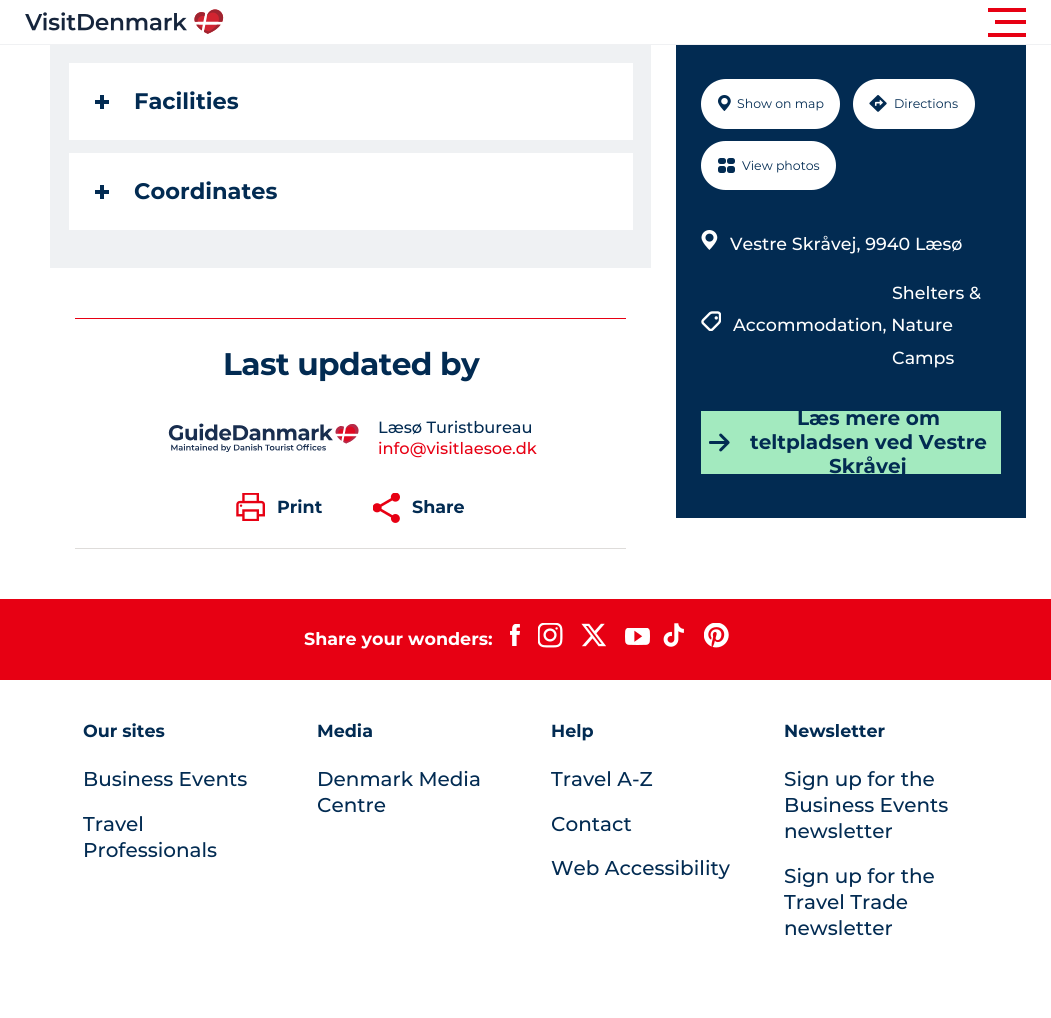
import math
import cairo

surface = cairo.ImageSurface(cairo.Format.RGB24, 1051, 1018)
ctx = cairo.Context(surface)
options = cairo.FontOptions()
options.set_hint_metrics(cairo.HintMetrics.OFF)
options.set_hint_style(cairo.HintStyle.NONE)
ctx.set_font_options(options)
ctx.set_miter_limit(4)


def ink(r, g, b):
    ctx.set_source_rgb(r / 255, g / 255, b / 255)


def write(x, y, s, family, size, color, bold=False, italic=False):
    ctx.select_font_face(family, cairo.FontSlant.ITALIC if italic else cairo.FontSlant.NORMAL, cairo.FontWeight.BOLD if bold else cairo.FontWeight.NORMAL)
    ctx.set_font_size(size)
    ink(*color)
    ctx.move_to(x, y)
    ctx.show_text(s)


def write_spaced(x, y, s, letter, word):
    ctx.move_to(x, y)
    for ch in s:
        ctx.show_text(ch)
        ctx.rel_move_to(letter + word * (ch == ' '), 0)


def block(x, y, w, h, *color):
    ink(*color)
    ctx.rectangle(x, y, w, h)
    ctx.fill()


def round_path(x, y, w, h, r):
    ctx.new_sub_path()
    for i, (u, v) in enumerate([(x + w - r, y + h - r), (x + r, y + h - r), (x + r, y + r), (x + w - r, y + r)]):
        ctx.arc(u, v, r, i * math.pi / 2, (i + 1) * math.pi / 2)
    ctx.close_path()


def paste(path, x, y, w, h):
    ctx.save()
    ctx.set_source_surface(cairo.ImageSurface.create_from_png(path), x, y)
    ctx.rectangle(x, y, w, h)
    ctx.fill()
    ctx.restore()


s1 = dict(family="Montserrat", size=22.5, color=(2, 43, 82), bold=True)
s2 = dict(family="Montserrat Medium", size=16.25, color=(2, 43, 82))
s3 = dict(family="Montserrat Medium", size=16.25, color=(231, 0, 19))
s4 = dict(family="Montserrat", size=17.5, color=(2, 43, 82), bold=True)
s5 = dict(family="Montserrat", size=12.5, color=(2, 43, 82))
s6 = dict(family="Montserrat Medium", size=17.5, color=(255, 255, 255))
s7 = dict(family="Montserrat", size=20, color=(2, 43, 82), bold=True)
s8 = dict(family="Montserrat", size=17.5, color=(255, 255, 255), bold=True)
s9 = dict(family="Montserrat Medium", size=20, color=(2, 43, 82))

ink(255, 255, 255)
ctx.paint()
block(0, 44, 1051, 1, 240, 241, 243)
paste("pic1.png", 25, 9, 199, 25)
block(988, 8, 38, 4, 231, 0, 19)
block(995, 20, 31, 4, 231, 0, 19)
block(988, 33, 38, 4, 231, 0, 19)
block(50, 45, 601, 223, 239, 241, 243)
block(69, 63, 564, 77, 255, 255, 255)
block(95, 100, 14, 4, 2, 43, 82)
block(100, 95, 4, 14, 2, 43, 82)
write(134, 109, "Facilities", **s1)
block(69, 153, 564, 77, 255, 255, 255)
block(95, 190, 14, 4, 2, 43, 82)
block(100, 185, 4, 14, 2, 43, 82)
write(134, 199, "Coordinates", **s1)
block(75, 318, 551, 1, 231, 0, 19)
block(75, 548, 551, 1, 222, 220, 218)
ctx.set_font_size(31.25)
ink(2, 43, 82)
write_spaced(223, 375, "Last updated by", -0.6, 0)
paste("pic2.png", 168, 423, 191, 29)
write(378, 433, "Læsø Turistbureau", **s2)
write(378, 454, "info@visitlaesoe.dk", **s3)
paste("pic3.png", 236, 493, 29, 28)
write(277, 513, "Print", **s4)
paste("pic4.png", 373, 493, 27, 30)
write(412, 513, "Share", **s4)
block(676, 45, 350, 473, 2, 43, 82)
ink(255, 255, 255)
round_path(701, 79, 139, 50, 25)
ctx.fill()
paste("pic5.png", 718, 95, 13, 16)
write(737, 108, "Show on map", **s5)
ink(255, 255, 255)
round_path(853, 79, 122, 50, 25)
ctx.fill()
paste("pic6.png", 869, 95, 18, 17)
write(894, 108, "Directions", **s5)
ink(255, 255, 255)
round_path(701, 141, 135, 49, 24.5)
ctx.fill()
paste("pic7.png", 718, 158, 17, 15)
write(742, 170, "View photos", **s5)
paste("pic8.png", 701, 230, 17, 20)
write(730, 250, "Vestre Skråvej, 9940 Læsø", **s6)
paste("pic9.png", 701, 311, 20, 20)
write(892, 299, "Shelters &", **s6)
write(892, 364, "Camps", **s6)
write(733, 331, "Accommodation, Nature", **s6)
block(701, 411, 300, 63, 163, 234, 191)
write(797, 425, "Læs mere om", **s7)
paste("pic10.png", 709, 433, 21, 19)
write(750, 449, "teltpladsen ved Vestre", **s7)
write(829, 473, "Skråvej", **s7)
block(0, 599, 1051, 81, 231, 0, 19)
write(304, 645, "Share your wonders:", **s8)
paste("pic11.png", 510, 624, 10, 22)
paste("pic12.png", 538, 623, 25, 25)
paste("pic13.png", 581, 623, 25, 24)
paste("pic14.png", 625, 628, 25, 17)
paste("pic15.png", 663, 623, 21, 24)
paste("pic16.png", 704, 623, 25, 25)
write(83, 737, "Our sites", **s4)
write(83, 786, "Business Events", **s9)
write(83, 831, "Travel", **s9)
write(83, 857, "Professionals", **s9)
write(317, 737, "Media", **s4)
write(317, 786, "Denmark Media", **s9)
write(317, 812, "Centre", **s9)
write(551, 737, "Help", **s4)
write(551, 786, "Travel A-Z", **s9)
write(551, 831, "Contact", **s9)
write(551, 875, "Web Accessibility", **s9)
write(784, 737, "Newsletter", **s4)
write(784, 786, "Sign up for the", **s9)
write(784, 812, "Business Events", **s9)
write(784, 838, "newsletter", **s9)
write(784, 883, "Sign up for the", **s9)
write(784, 909, "Travel Trade", **s9)
write(784, 935, "newsletter", **s9)
surface.write_to_png("screenshot.png")
